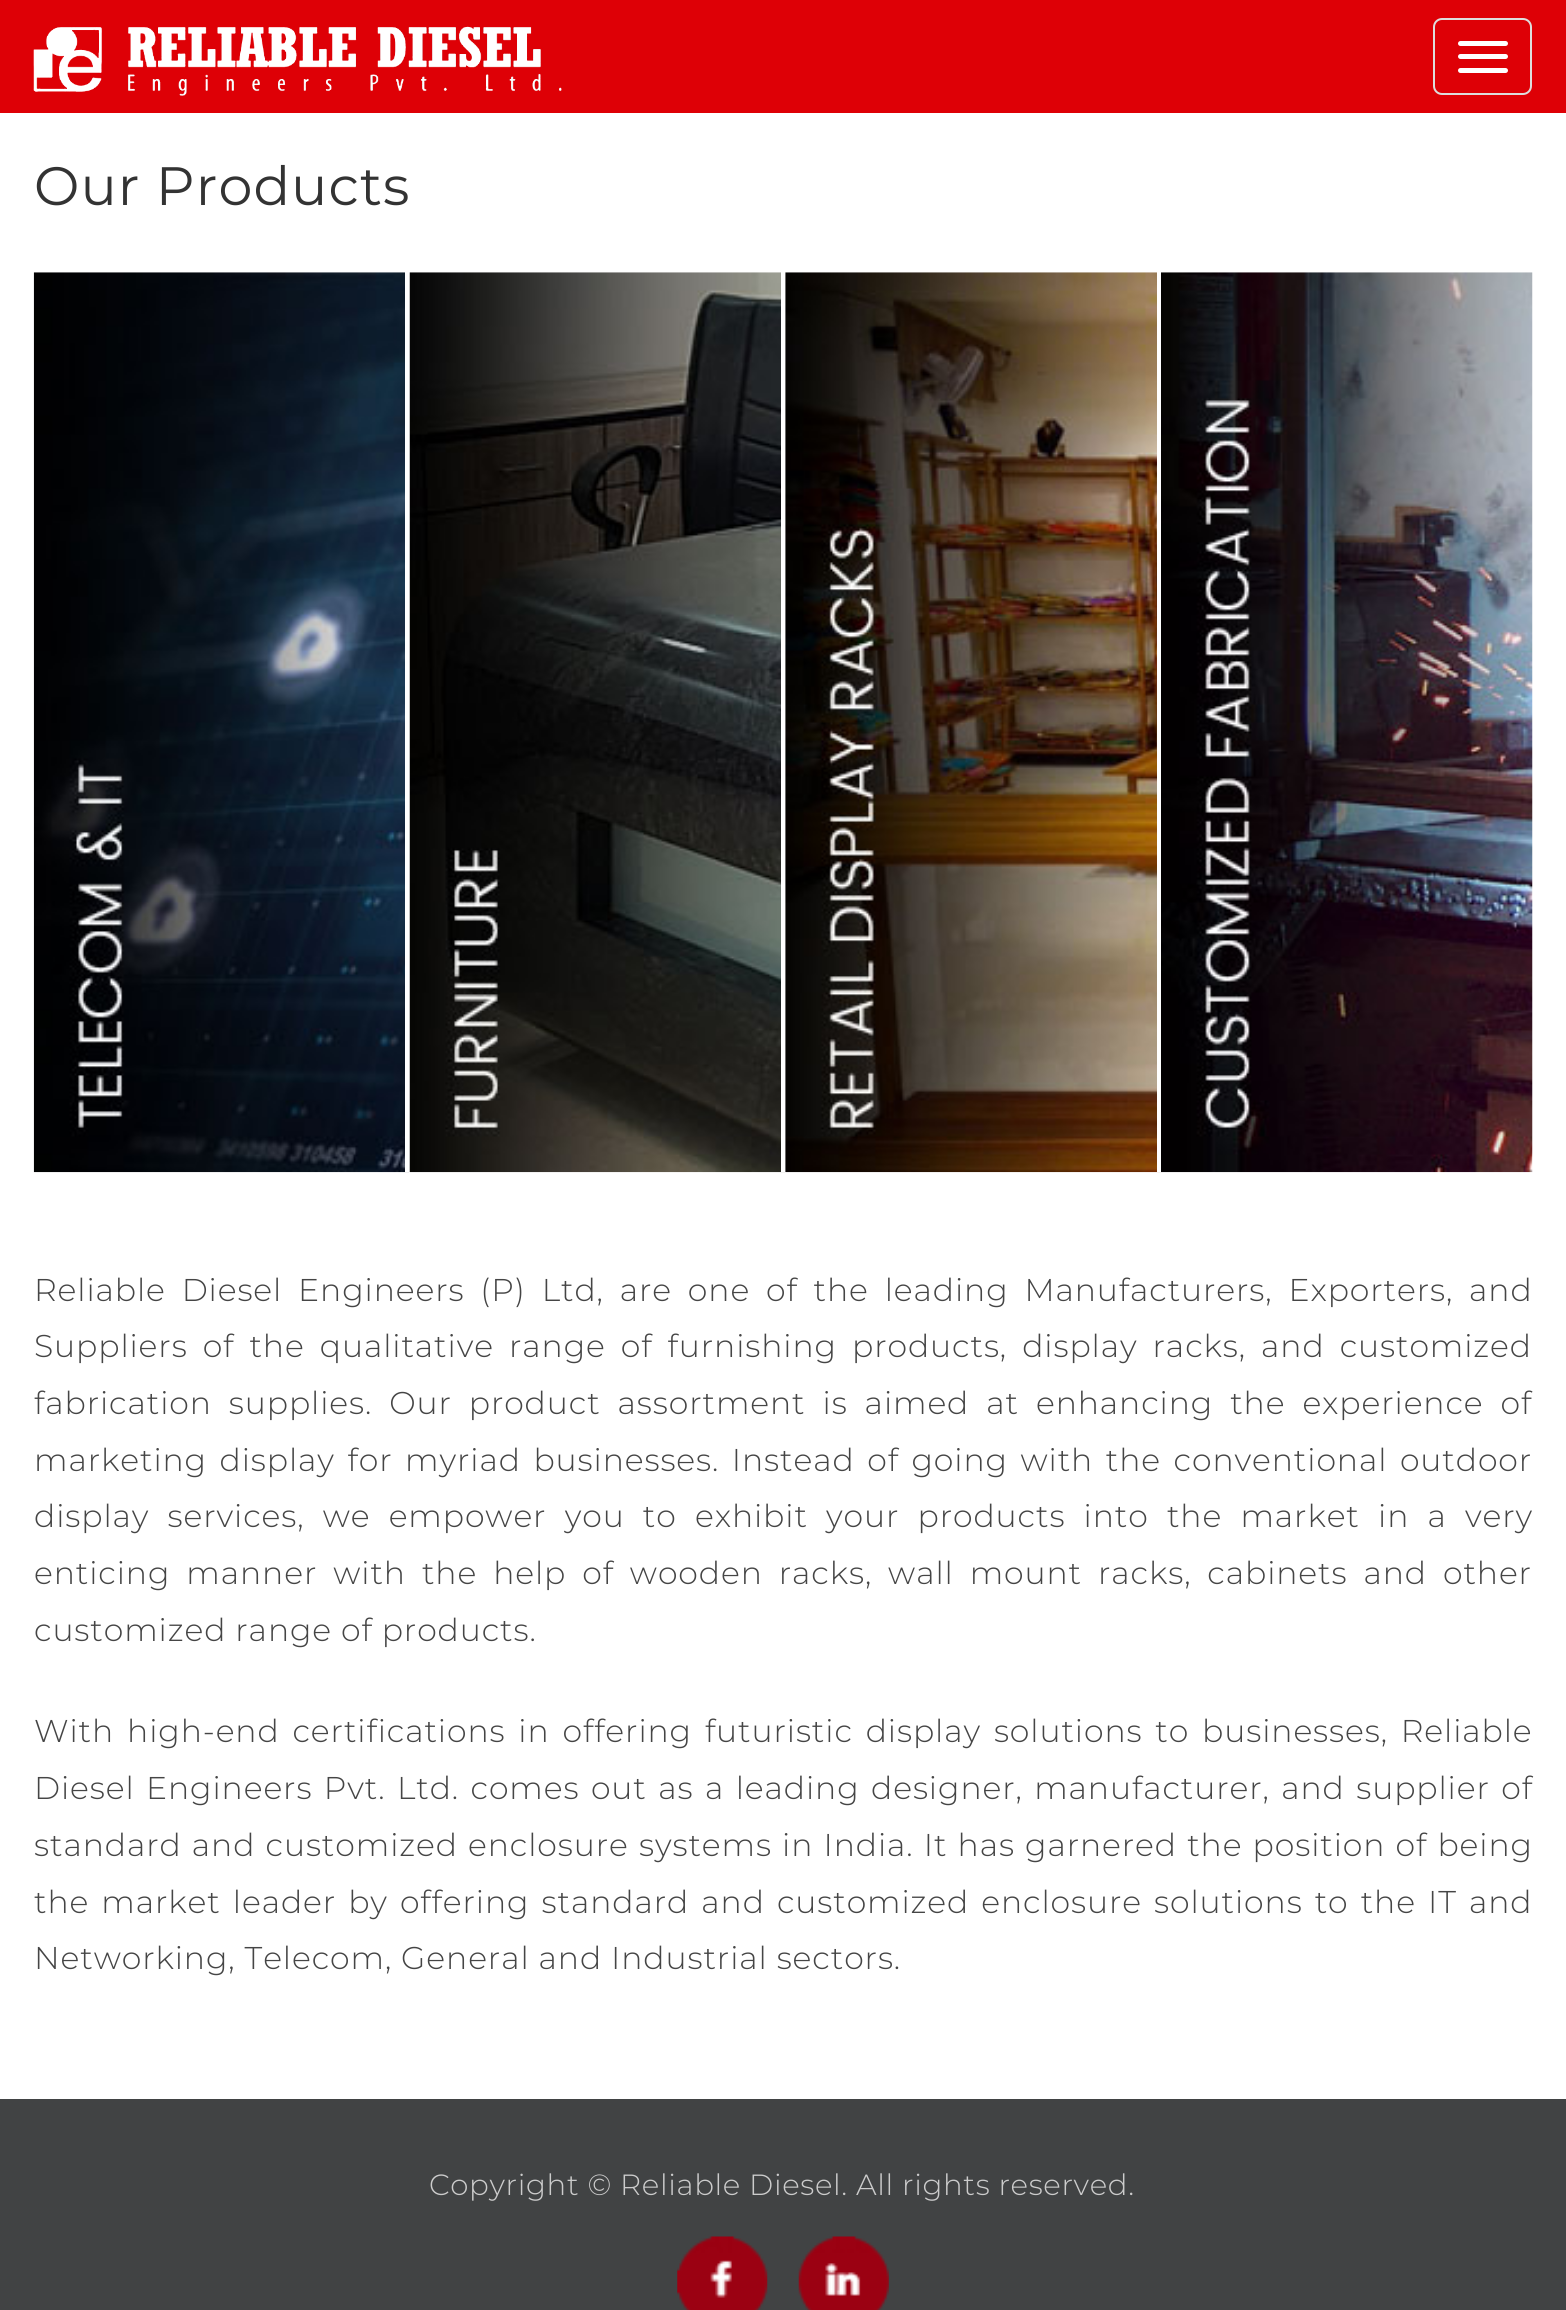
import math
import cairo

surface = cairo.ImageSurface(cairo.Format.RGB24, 1566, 2310)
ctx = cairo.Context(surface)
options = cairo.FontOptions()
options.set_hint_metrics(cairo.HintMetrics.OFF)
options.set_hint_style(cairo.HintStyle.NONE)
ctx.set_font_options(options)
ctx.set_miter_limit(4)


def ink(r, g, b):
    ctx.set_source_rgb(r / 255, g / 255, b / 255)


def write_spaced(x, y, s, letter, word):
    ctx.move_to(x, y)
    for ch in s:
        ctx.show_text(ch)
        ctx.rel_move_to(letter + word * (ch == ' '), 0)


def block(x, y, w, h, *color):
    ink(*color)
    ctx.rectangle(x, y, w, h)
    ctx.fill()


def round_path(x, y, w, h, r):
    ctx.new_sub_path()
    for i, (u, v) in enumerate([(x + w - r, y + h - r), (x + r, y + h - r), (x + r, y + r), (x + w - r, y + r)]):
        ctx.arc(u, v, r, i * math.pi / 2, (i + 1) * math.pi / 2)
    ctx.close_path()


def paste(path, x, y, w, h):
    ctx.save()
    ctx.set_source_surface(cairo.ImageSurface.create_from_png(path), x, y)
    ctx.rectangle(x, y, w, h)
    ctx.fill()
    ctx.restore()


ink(255, 255, 255)
ctx.paint()
block(0, 0, 1566, 113, 222, 0, 6)
paste("pic1.png", 33, 26, 529, 70)
round_path(1434, 19, 97, 75, 8)
ink(221, 221, 221)
ctx.stroke()
ink(255, 255, 255)
round_path(1458, 41, 50, 5, 2.5)
ctx.fill()
round_path(1458, 54, 50, 5, 2.5)
ctx.fill()
round_path(1458, 68, 50, 5, 2.5)
ctx.fill()
ctx.select_font_face("Montserrat")
ctx.set_font_size(54)
ink(51, 51, 51)
write_spaced(34, 205, "Our Products", 1.1, 0)
paste("pic2.png", 33, 272, 376, 901)
block(405, 272, 4, 900, 255, 255, 255)
paste("pic3.png", 409, 272, 377, 901)
block(781, 272, 4, 900, 255, 255, 255)
paste("pic4.png", 785, 272, 376, 901)
block(1157, 272, 4, 900, 255, 255, 255)
paste("pic5.png", 1161, 272, 372, 901)
ctx.select_font_face("Montserrat Light")
ctx.set_font_size(31.5)
ink(69, 69, 69)
write_spaced(34, 1301, "Reliable Diesel Engineers (P) Ltd, are one of the leading Manufacturers, Exporters, and", 0.9, 6.9)
write_spaced(34, 1357, "Suppliers of the qualitative range of furnishing products, display racks, and customized", 0.9, 6.1)
write_spaced(34, 1414, "fabrication supplies. Our product assortment is aimed at enhancing the experience of", 0.9, 8)
write_spaced(34, 1471, "marketing display for myriad businesses. Instead of going with the conventional outdoor", 0.9, 3.6)
write_spaced(34, 1527, "display services, we empower you to exhibit your products into the market in a very", 0.9, 9.25)
write_spaced(34, 1584, "enticing manner with the help of wooden racks, wall mount racks, cabinets and other", 0.9, 7)
write_spaced(34, 1641, "customized range of products.", 0.9, 0)
write_spaced(34, 1742, "With high-end certifications in offering futuristic display solutions to businesses, Reliable", 0.9, 3.9)
write_spaced(34, 1799, "Diesel Engineers Pvt. Ltd. comes out as a leading designer, manufacturer, and supplier of", 0.9, 2.5)
write_spaced(34, 1856, "standard and customized enclosure systems in India. It has garnered the position of being", 0.9, 1.2)
write_spaced(34, 1913, "the market leader by offering standard and customized enclosure solutions to the IT and", 0.9, 3.1)
write_spaced(34, 1969, "Networking, Telecom, General and Industrial sectors.", 0.9, 0)
block(0, 2099, 1566, 211, 65, 67, 68)
ctx.set_font_size(29.25)
ink(204, 204, 204)
write_spaced(429, 2195, "Copyright © Reliable Diesel. All rights reserved.", 0.65, 0)
paste("pic6.png", 677, 2236, 91, 74)
paste("pic7.png", 798, 2236, 91, 74)
surface.write_to_png("screenshot.png")
